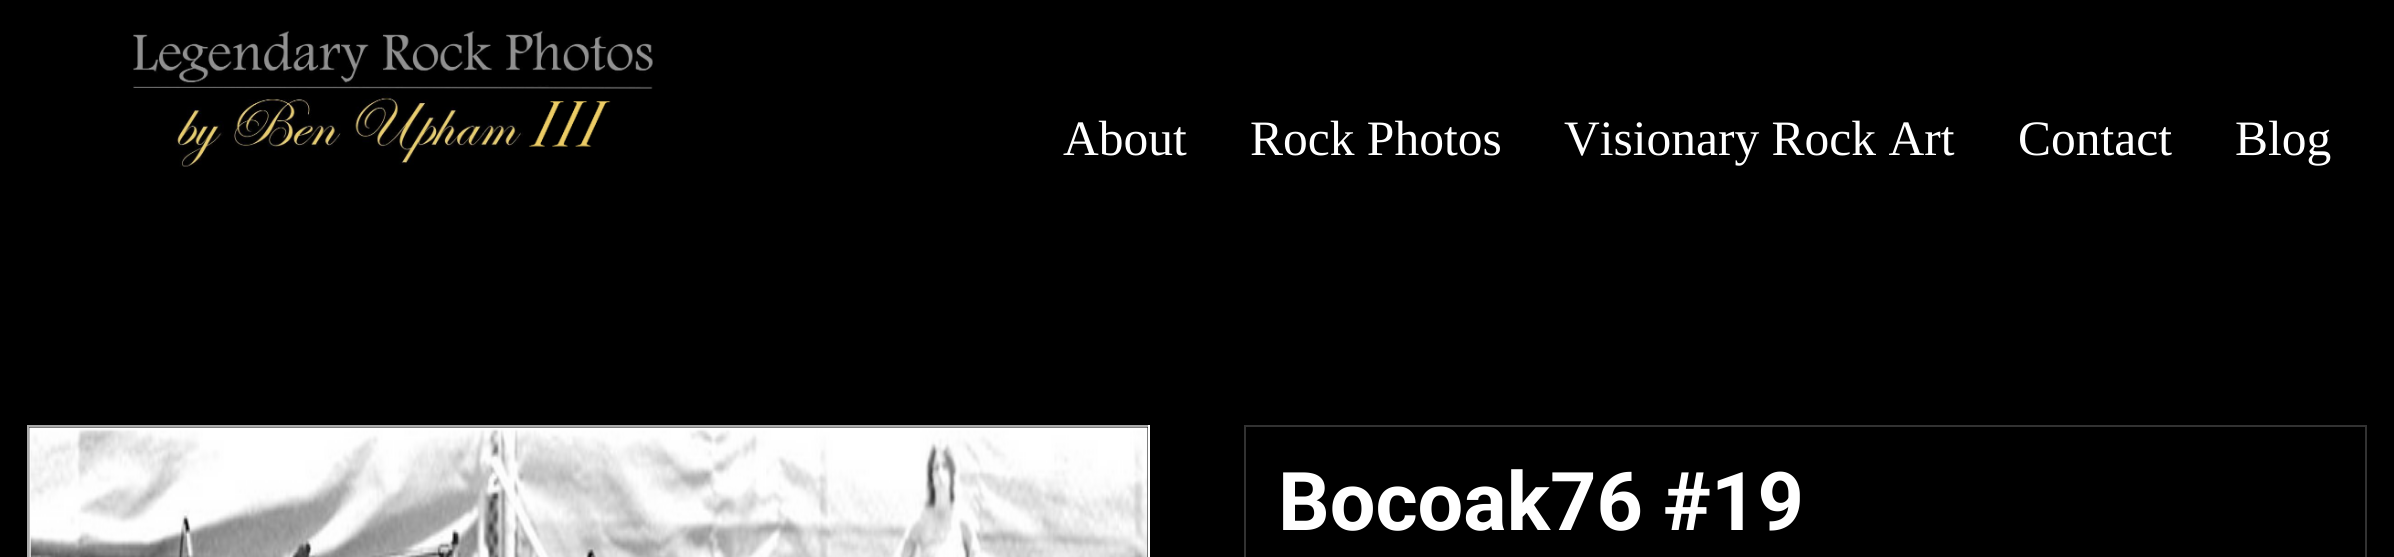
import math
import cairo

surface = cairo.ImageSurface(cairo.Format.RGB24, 2394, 557)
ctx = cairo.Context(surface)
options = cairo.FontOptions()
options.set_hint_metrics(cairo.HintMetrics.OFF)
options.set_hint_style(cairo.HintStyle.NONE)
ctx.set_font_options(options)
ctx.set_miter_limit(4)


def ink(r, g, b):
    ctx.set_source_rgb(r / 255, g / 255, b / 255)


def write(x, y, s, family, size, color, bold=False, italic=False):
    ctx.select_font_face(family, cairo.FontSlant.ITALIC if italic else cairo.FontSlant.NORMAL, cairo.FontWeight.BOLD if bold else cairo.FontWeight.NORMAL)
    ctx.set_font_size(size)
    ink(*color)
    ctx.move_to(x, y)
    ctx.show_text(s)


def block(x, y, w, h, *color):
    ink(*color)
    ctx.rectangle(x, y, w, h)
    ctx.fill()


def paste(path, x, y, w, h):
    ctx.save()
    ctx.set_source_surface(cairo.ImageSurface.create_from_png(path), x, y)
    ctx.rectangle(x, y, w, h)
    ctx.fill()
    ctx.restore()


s1 = dict(family="Liberation Serif", size=49.5, color=(255, 255, 255))
s2 = dict(family="Roboto", size=81, color=(255, 255, 255), bold=True)

ink(0, 0, 0)
ctx.paint()
paste("pic1.png", 133, 30, 520, 137)
write(1063, 155, "About", **s1)
write(1250, 155, "Rock Photos", **s1)
write(1564, 155, "Visionary Rock Art", **s1)
write(2018, 155, "Contact", **s1)
write(2235, 155, "Blog", **s1)
block(27, 425, 1123, 2, 170, 170, 170)
block(1148, 425, 2, 132, 255, 255, 255)
block(27, 425, 2, 132, 170, 170, 170)
paste("pic2.png", 29, 427, 1119, 130)
ctx.rectangle(1245, 426, 1121, 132)
ink(50, 50, 50)
ctx.stroke()
write(1278, 530, "Bocoak76 #19", **s2)
surface.write_to_png("screenshot.png")
